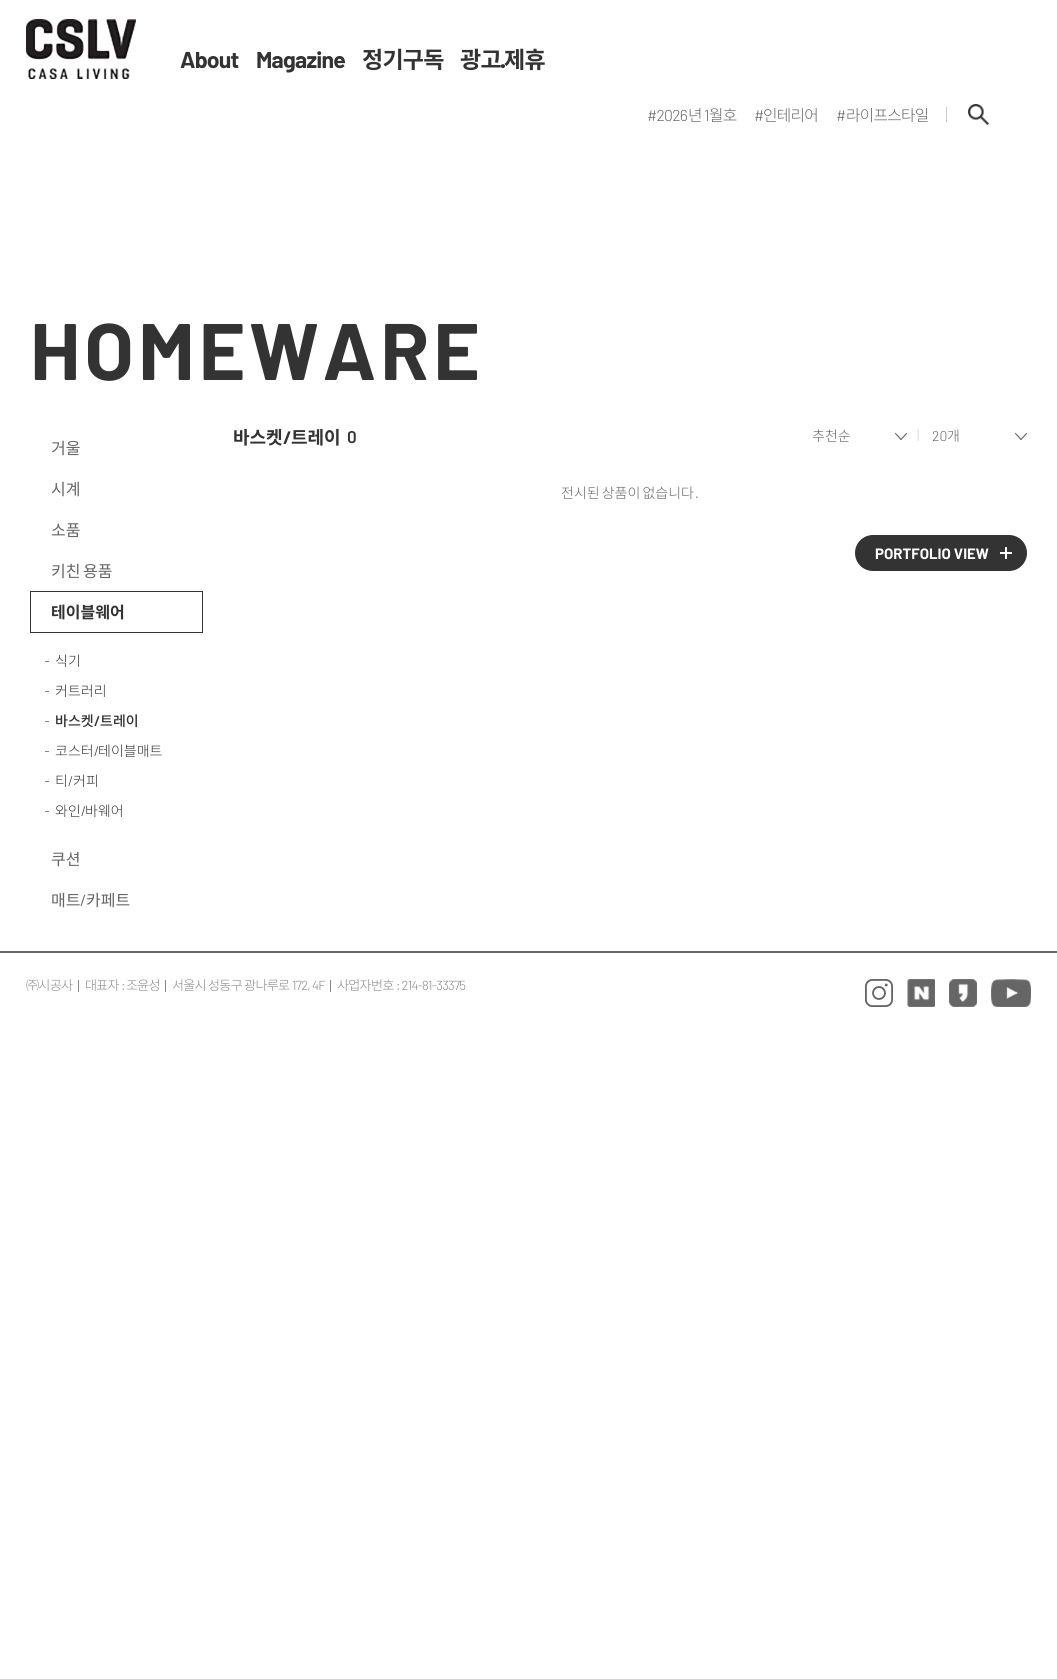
import math
import cairo

surface = cairo.ImageSurface(cairo.Format.RGB24, 1057, 1679)
ctx = cairo.Context(surface)
options = cairo.FontOptions()
options.set_hint_metrics(cairo.HintMetrics.OFF)
options.set_hint_style(cairo.HintStyle.NONE)
ctx.set_font_options(options)
ctx.set_miter_limit(4)


def ink(r, g, b):
    ctx.set_source_rgb(r / 255, g / 255, b / 255)


def write(x, y, s, family, size, color, bold=False, italic=False):
    ctx.select_font_face(family, cairo.FontSlant.ITALIC if italic else cairo.FontSlant.NORMAL, cairo.FontWeight.BOLD if bold else cairo.FontWeight.NORMAL)
    ctx.set_font_size(size)
    ink(*color)
    ctx.move_to(x, y)
    ctx.show_text(s)


def write_spaced(x, y, s, letter, word):
    ctx.move_to(x, y)
    for ch in s:
        ctx.show_text(ch)
        ctx.rel_move_to(letter + word * (ch == ' '), 0)


def block(x, y, w, h, *color):
    ink(*color)
    ctx.rectangle(x, y, w, h)
    ctx.fill()


def round_path(x, y, w, h, r):
    ctx.new_sub_path()
    for i, (u, v) in enumerate([(x + w - r, y + h - r), (x + r, y + h - r), (x + r, y + r), (x + w - r, y + r)]):
        ctx.arc(u, v, r, i * math.pi / 2, (i + 1) * math.pi / 2)
    ctx.close_path()


def paste(path, x, y, w, h):
    ctx.save()
    ctx.set_source_surface(cairo.ImageSurface.create_from_png(path), x, y)
    ctx.rectangle(x, y, w, h)
    ctx.fill()
    ctx.restore()


s1 = dict(family="Noto Sans KR", size=16, color=(102, 102, 102))
s2 = dict(family="Noto Sans KR", size=16, color=(51, 51, 51), bold=True)
s3 = dict(family="Noto Sans KR Light", size=14, color=(51, 51, 51))
s4 = dict(family="Noto Sans KR Medium", size=14, color=(51, 51, 51))
s5 = dict(family="Barlow SemiBold", size=14, color=(51, 51, 51))
s6 = dict(family="Barlow Light", size=14, color=(51, 51, 51))
s7 = dict(family="Barlow", size=16, color=(102, 102, 102))
s8 = dict(family="Noto Sans KR", size=18, color=(51, 51, 51), bold=True)
s9 = dict(family="Barlow", size=18, color=(51, 51, 51), bold=True)
s10 = dict(family="Barlow SemiBold", size=17, color=(51, 51, 51))
s11 = dict(family="Noto Sans KR Light", size=14, color=(102, 102, 102))
s12 = dict(family="Barlow Light", size=14, color=(201, 201, 201))
s13 = dict(family="Barlow Light", size=14, color=(102, 102, 102))
s14 = dict(family="Barlow", size=15, color=(255, 255, 255), bold=True)

ink(255, 255, 255)
ctx.paint()
paste("pic1.png", 26, 19, 110, 60)
ctx.select_font_face("Barlow", cairo.FontSlant.NORMAL, cairo.FontWeight.BOLD)
ctx.set_font_size(23)
ink(51, 51, 51)
write_spaced(180, 68, "About", -0.75, 0)
write_spaced(256, 68, "Magazine", -0.75, 0)
ctx.select_font_face("Noto Sans KR", cairo.FontSlant.NORMAL, cairo.FontWeight.BOLD)
write_spaced(362, 68, "정기구독", -0.75, 0)
write_spaced(460, 68, "광고", -0.75, 0)
ctx.select_font_face("Barlow", cairo.FontSlant.NORMAL, cairo.FontWeight.BOLD)
write_spaced(501, 68, "·", -0.75, 0)
ctx.select_font_face("Noto Sans KR", cairo.FontSlant.NORMAL, cairo.FontWeight.BOLD)
write_spaced(504, 68, "제휴", -0.75, 0)
block(946, 107, 1, 15, 203, 203, 203)
ctx.select_font_face("Barlow Light")
ctx.set_font_size(15.75)
ink(102, 102, 102)
write_spaced(647, 121, "#2026", -0.75, 0)
ctx.select_font_face("Noto Sans KR Light")
write_spaced(688, 121, "년", -0.75, 0)
ctx.select_font_face("Barlow Light")
write_spaced(704, 121, "1", -0.75, 0)
ctx.select_font_face("Noto Sans KR Light")
write_spaced(709, 121, "월호", -0.75, 0)
ctx.select_font_face("Barlow Light")
write_spaced(754, 121, "#", -0.75, 0)
ctx.select_font_face("Noto Sans KR Light")
write_spaced(763, 121, "인테리어", -0.75, 0)
ctx.select_font_face("Barlow Light")
write_spaced(836, 121, "#", -0.75, 0)
ctx.select_font_face("Noto Sans KR Light")
write_spaced(846, 121, "라이프스타일", -0.75, 0)
paste("pic2.png", 968, 104, 21, 21)
ctx.select_font_face("Barlow", cairo.FontSlant.NORMAL, cairo.FontWeight.BOLD)
ctx.set_font_size(80)
ink(51, 51, 51)
write_spaced(30, 380, "HOMEWARE", 4, 0)
write(51, 454, "거울", **s1)
write(51, 495, "시계", **s1)
write(51, 536, "소품", **s1)
write_spaced(51, 577, "키친 용품", 0, -1)
ctx.rectangle(30.5, 591.5, 172, 41)
ink(51, 51, 51)
ctx.set_line_width(1)
ctx.stroke()
write(51, 618, "테이블웨어", **s2)
block(45, 661, 4, 1, 136, 136, 136)
write(55, 666, "식기", **s3)
block(45, 691, 4, 1, 136, 136, 136)
write(55, 696, "커트러리", **s3)
block(45, 721, 4, 1, 136, 136, 136)
write(55, 726, "바스켓", **s4)
write(94, 726, "/", **s5)
write(100, 726, "트레이", **s4)
block(45, 751, 4, 1, 136, 136, 136)
write(55, 756, "코스터", **s3)
write(94, 756, "/", **s6)
write(98, 756, "테이블매트", **s3)
block(45, 781, 4, 1, 136, 136, 136)
write(55, 786, "티", **s3)
write(68, 786, "/", **s6)
write(73, 786, "커피", **s3)
block(45, 811, 4, 1, 136, 136, 136)
write(55, 816, "와인", **s3)
write(81, 816, "/", **s6)
write(85, 816, "바웨어", **s3)
write(51, 865, "쿠션", **s1)
write(51, 906, "매트", **s1)
write(80, 906, "/", **s7)
write(86, 906, "카페트", **s1)
write(233, 444, "바스켓", **s8)
write(283, 444, "/", **s9)
write(291, 444, "트레이", **s8)
write(347, 443, "0", **s10)
paste("pic3.png", 895, 433, 12, 7)
write(812, 441, "추천순", **s11)
write(917, 440, "|", **s12)
paste("pic3.png", 1015, 433, 12, 7)
write(932, 441, "20", **s13)
write(947, 441, "개", **s11)
write_spaced(561, 498, "전시된 상품이 없습니다", 0, -1)
write(695, 498, ".", **s13)
ink(51, 51, 51)
round_path(855, 535, 172, 36, 18)
ctx.fill()
write(875, 559, "PORTFOLIO VIEW", **s14)
block(1005, 547, 2, 12, 255, 255, 255)
block(1000, 552, 12, 2, 255, 255, 255)
block(0, 951, 1057, 2, 102, 102, 102)
ctx.select_font_face("Noto Sans KR Light")
ctx.set_font_size(13.1)
ink(136, 136, 136)
write_spaced(26, 990, "㈜시공사", -0.75, 0)
block(78, 980, 1, 12, 136, 136, 136)
write_spaced(85, 990, "대표자", -0.75, 0)
ctx.select_font_face("Barlow Light")
write_spaced(121, 990, ":", -0.75, 0)
ctx.select_font_face("Noto Sans KR Light")
write_spaced(126, 990, "조윤성", -0.75, 0)
block(165, 980, 1, 12, 136, 136, 136)
write_spaced(172, 990, "서울시 성동구 광나루로", -0.75, 0)
ctx.select_font_face("Barlow Light")
write_spaced(292, 990, "172, 4F", -0.75, 0)
block(330, 980, 1, 12, 136, 136, 136)
ctx.select_font_face("Noto Sans KR Light")
write_spaced(337, 990, "사업자번호", -0.75, 0)
ctx.select_font_face("Barlow Light")
write_spaced(396, 990, ": 214-81-33375", -0.75, 0)
paste("pic4.png", 865, 979, 28, 28)
paste("pic5.png", 907, 979, 28, 28)
paste("pic6.png", 949, 979, 28, 28)
paste("pic7.png", 991, 979, 40, 28)
surface.write_to_png("screenshot.png")
